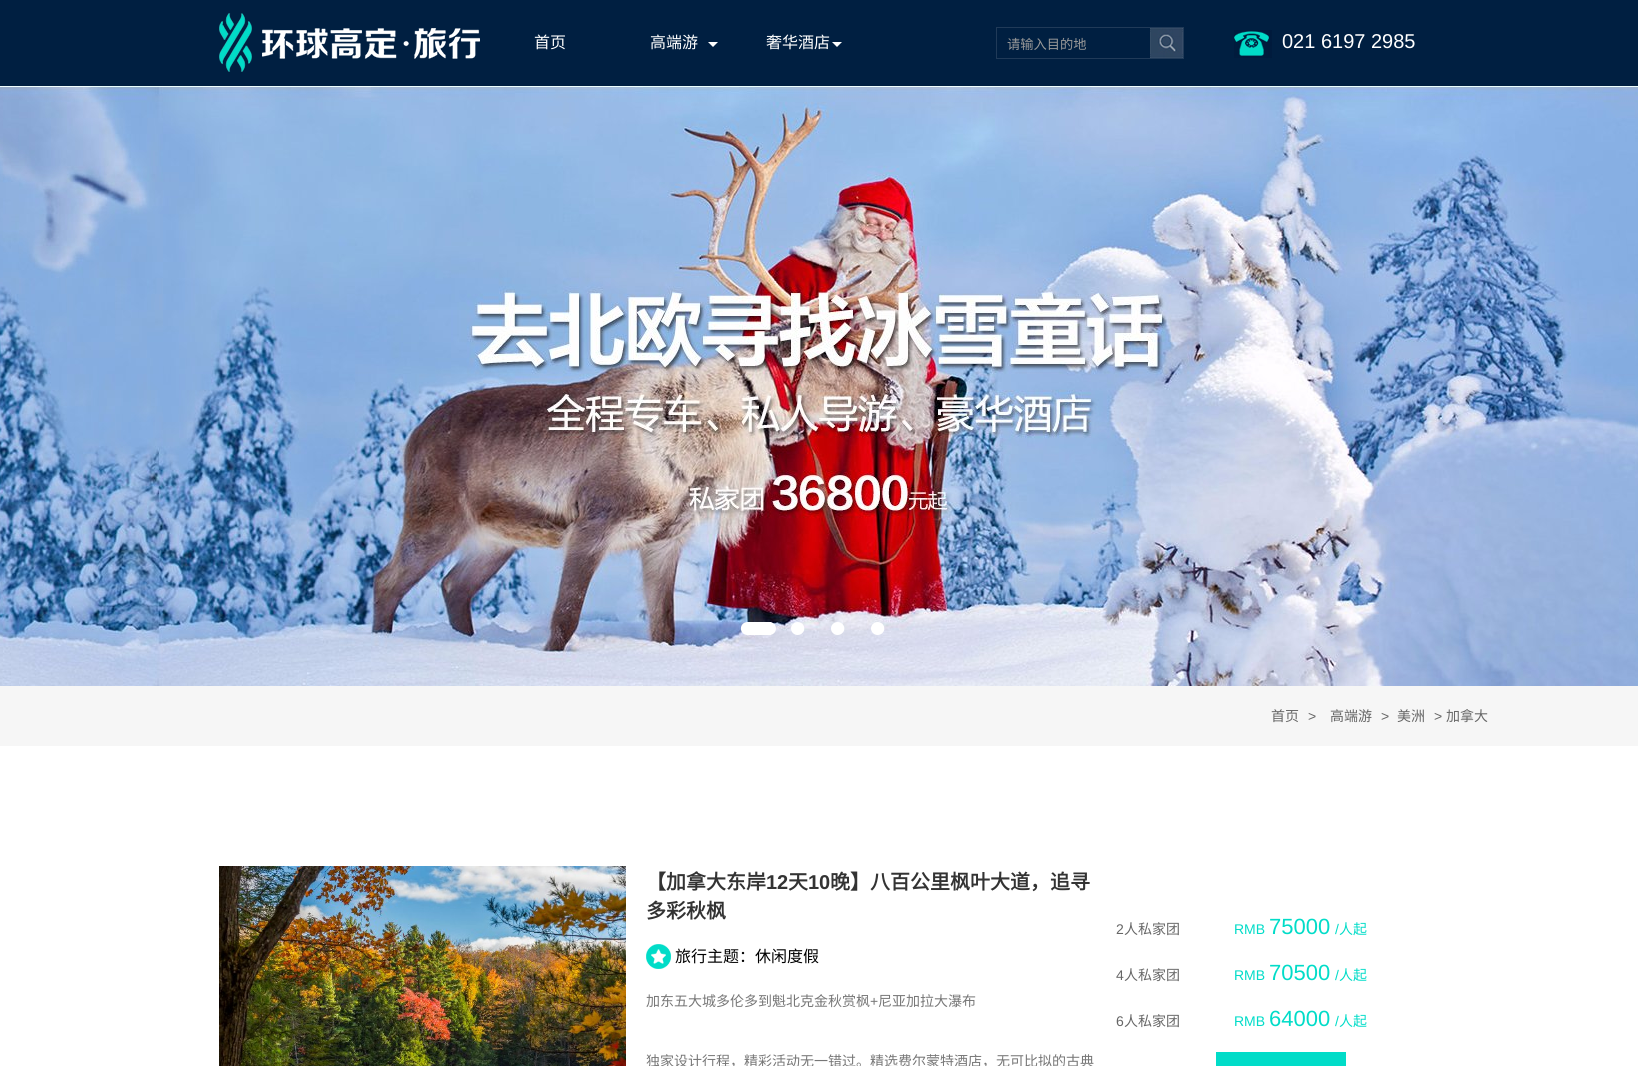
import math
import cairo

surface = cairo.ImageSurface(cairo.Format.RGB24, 1638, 1066)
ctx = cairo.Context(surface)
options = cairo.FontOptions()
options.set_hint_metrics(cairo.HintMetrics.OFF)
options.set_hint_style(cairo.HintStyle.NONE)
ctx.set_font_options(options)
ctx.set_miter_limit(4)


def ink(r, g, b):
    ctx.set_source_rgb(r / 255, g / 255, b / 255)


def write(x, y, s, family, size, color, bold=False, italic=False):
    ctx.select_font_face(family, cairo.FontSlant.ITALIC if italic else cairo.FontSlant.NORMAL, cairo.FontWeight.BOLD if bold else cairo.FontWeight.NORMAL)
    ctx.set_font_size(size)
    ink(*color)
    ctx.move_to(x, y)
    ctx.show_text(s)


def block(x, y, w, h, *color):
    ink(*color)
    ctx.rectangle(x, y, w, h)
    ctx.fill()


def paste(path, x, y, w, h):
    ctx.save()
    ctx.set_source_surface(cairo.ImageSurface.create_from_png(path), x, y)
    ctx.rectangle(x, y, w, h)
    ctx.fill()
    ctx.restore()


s1 = dict(family="Noto Sans CJK SC", size=16, color=(255, 255, 255))
s2 = dict(family="Noto Sans CJK SC", size=13.25, color=(153, 153, 153))
s3 = dict(family="Liberation Sans", size=20, color=(255, 255, 255))
s4 = dict(family="Noto Sans CJK SC", size=14, color=(102, 102, 102))
s5 = dict(family="Liberation Sans", size=14, color=(102, 102, 102))
s6 = dict(family="Noto Sans CJK SC", size=20, color=(51, 51, 51), bold=True)
s7 = dict(family="Liberation Sans", size=20, color=(51, 51, 51), bold=True)
s8 = dict(family="Noto Sans CJK SC", size=16, color=(0, 0, 0))
s9 = dict(family="Noto Sans CJK SC", size=14, color=(119, 119, 119))
s10 = dict(family="Liberation Sans", size=14, color=(119, 119, 119))
s11 = dict(family="Liberation Sans", size=14, color=(1, 220, 200))
s12 = dict(family="Liberation Sans", size=22, color=(1, 220, 200))
s13 = dict(family="Noto Sans CJK SC", size=14, color=(1, 220, 200))

ink(255, 255, 255)
ctx.paint()
block(0, 0, 1638, 86, 0, 31, 65)
write(534, 48, "首页", **s1)
paste("pic1.png", 708, 42, 10, 5)
write(650, 48, "高端游", **s1)
paste("pic1.png", 832, 42, 10, 5)
write(766, 48, "奢华酒店", **s1)
paste("pic2.png", 219, 13, 261, 59)
ctx.rectangle(996.5, 27.5, 187, 31)
ink(32, 58, 88)
ctx.set_line_width(1)
ctx.stroke()
write(1007, 49, "请输入目的地", **s2)
paste("pic3.png", 1150, 28, 33, 30)
paste("pic4.png", 1234, 30, 38, 28)
write(1282, 48, "021 6197 2985", **s3)
paste("pic5.png", 0, 86, 1638, 600)
paste("pic6.png", 740, 622, 36, 13)
paste("pic7.png", 791, 622, 14, 13)
paste("pic8.png", 831, 622, 14, 13)
paste("pic9.png", 871, 622, 14, 13)
block(0, 686, 1638, 60, 246, 246, 246)
write(1271, 721, "首页", **s4)
write(1308, 721, ">", **s5)
write(1330, 721, "高端游", **s4)
write(1381, 721, ">", **s5)
write(1397, 721, "美洲", **s4)
write(1434, 721, ">", **s5)
write(1446, 721, "加拿大", **s4)
paste("pic10.png", 219, 866, 407, 200)
write(646, 889, "【加拿大东岸", **s6)
write(766, 889, "12", **s7)
write(788, 889, "天", **s6)
write(808, 889, "10", **s7)
write(830, 889, "晚】八百公里枫叶大道，追寻", **s6)
write(646, 918, "多彩秋枫", **s6)
paste("pic11.png", 646, 944, 25, 25)
write(675, 962, "旅行主题：休闲度假", **s8)
write(646, 1006, "加东五大城多伦多到魁北克金秋赏枫", **s9)
write(870, 1006, "+", **s10)
write(878, 1006, "尼亚加拉大瀑布", **s9)
write(646, 1066, "独家设计行程，精彩活动无一错过。精选费尔蒙特酒店，无可比拟的古典", **s9)
write(1116, 934, "2", **s5)
write(1124, 934, "人私家团", **s4)
write(1234, 934, "RMB", **s11)
write(1269, 934, "75000", **s12)
write(1335, 934, "/", **s11)
write(1339, 934, "人起", **s13)
write(1116, 980, "4", **s5)
write(1124, 980, "人私家团", **s4)
write(1234, 980, "RMB", **s11)
write(1269, 980, "70500", **s12)
write(1335, 980, "/", **s11)
write(1339, 980, "人起", **s13)
write(1116, 1026, "6", **s5)
write(1124, 1026, "人私家团", **s4)
write(1234, 1026, "RMB", **s11)
write(1269, 1026, "64000", **s12)
write(1335, 1026, "/", **s11)
write(1339, 1026, "人起", **s13)
block(1216, 1052, 130, 14, 1, 220, 200)
surface.write_to_png("screenshot.png")
